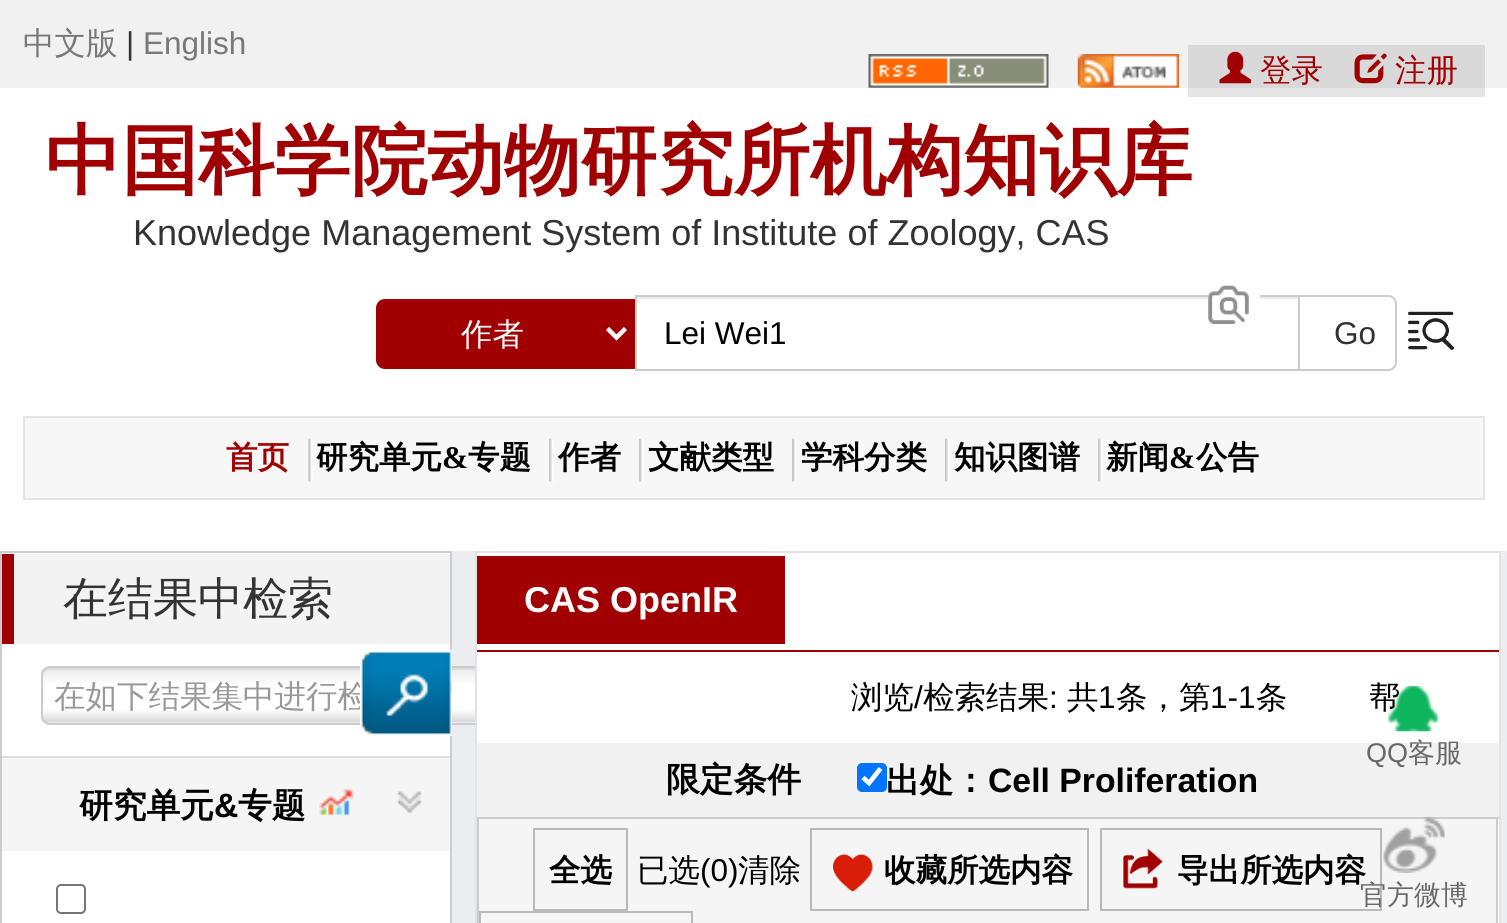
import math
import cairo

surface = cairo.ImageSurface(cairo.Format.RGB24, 1507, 923)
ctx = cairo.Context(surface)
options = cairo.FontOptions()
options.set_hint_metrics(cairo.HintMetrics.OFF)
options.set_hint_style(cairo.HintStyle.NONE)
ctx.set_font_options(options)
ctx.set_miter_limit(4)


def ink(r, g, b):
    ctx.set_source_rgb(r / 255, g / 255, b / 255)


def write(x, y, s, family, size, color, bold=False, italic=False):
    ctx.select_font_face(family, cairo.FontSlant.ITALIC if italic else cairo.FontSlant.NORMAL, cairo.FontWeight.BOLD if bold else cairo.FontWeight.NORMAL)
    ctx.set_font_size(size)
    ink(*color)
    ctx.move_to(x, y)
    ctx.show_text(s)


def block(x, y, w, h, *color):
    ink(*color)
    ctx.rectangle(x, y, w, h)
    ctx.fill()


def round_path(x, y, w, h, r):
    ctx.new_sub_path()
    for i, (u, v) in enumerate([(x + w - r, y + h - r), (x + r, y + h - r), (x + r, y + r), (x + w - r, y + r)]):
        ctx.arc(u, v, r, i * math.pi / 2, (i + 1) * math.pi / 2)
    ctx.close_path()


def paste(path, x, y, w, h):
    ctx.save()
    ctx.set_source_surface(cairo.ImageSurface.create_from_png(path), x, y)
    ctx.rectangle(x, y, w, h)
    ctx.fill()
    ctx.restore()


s1 = dict(family="WenQuanYi Zen Hei Medium", size=31.5, color=(120, 120, 120))
s2 = dict(family="Liberation Sans", size=31.5, color=(51, 51, 51))
s3 = dict(family="Liberation Sans", size=31.5, color=(120, 120, 120))
s4 = dict(family="WenQuanYi Zen Hei Medium", size=31.5, color=(160, 0, 1))
s5 = dict(family="WenQuanYi Zen Hei Medium", size=31.5, color=(255, 255, 255))
s6 = dict(family="Liberation Sans", size=31.5, color=(0, 0, 0))
s7 = dict(family="WenQuanYi Zen Hei", size=76.5, color=(160, 0, 1), bold=True)
s8 = dict(family="Liberation Sans", size=36, color=(51, 51, 51))
s9 = dict(family="WenQuanYi Zen Hei", size=31.5, color=(160, 0, 1), bold=True)
s10 = dict(family="WenQuanYi Zen Hei", size=31.5, color=(0, 0, 0), bold=True)
s11 = dict(family="Liberation Serif", size=31.5, color=(0, 0, 0), bold=True)
s12 = dict(family="WenQuanYi Zen Hei Medium", size=45, color=(51, 51, 51))
s13 = dict(family="WenQuanYi Zen Hei Medium", size=31.5, color=(153, 153, 153))
s14 = dict(family="WenQuanYi Zen Hei", size=33.75, color=(0, 0, 0), bold=True)
s15 = dict(family="Liberation Sans", size=33.75, color=(0, 0, 0), bold=True)
s16 = dict(family="Liberation Sans", size=36, color=(255, 255, 255), bold=True)
s17 = dict(family="WenQuanYi Zen Hei Medium", size=31.5, color=(0, 0, 0))
s18 = dict(family="Liberation Sans", size=27, color=(103, 103, 103))
s19 = dict(family="WenQuanYi Zen Hei Medium", size=27, color=(103, 103, 103))

ink(236, 237, 241)
ctx.paint()
block(0, 88, 1507, 463, 255, 255, 255)
block(1188, 88, 297, 9, 230, 230, 230)
block(0, 0, 1507, 88, 241, 241, 241)
block(1188, 45, 297, 43, 217, 217, 217)
write(23, 54, "中文版", **s1)
write(126, 54, "|", **s2)
write(143, 54, "English", **s3)
paste("pic1.png", 868, 54, 181, 34)
paste("pic2.png", 1077, 54, 102, 34)
paste("pic3.png", 1219, 51, 32, 33)
write(1260, 81, "登录", **s4)
paste("pic4.png", 1354, 53, 33, 31)
write(1395, 81, "注册", **s4)
block(637, 297, 661, 2, 236, 236, 236)
block(635, 295, 663, 2, 204, 204, 204)
block(1208, 295, 52, 4, 255, 255, 255)
paste("pic5.png", 1208, 285, 41, 39)
ink(160, 0, 1)
ctx.new_path()
ctx.move_to(385, 300)
ctx.line_to(636, 300)
ctx.line_to(636, 368)
ctx.line_to(385, 368)
ctx.curve_to(380.5, 368, 377, 364.5, 377, 360)
ctx.line_to(377, 308)
ctx.curve_to(377, 303.5, 380.5, 300, 385, 300)
ctx.close_path()
ctx.fill_preserve()
ctx.stroke()
ctx.new_path()
ctx.move_to(607.5, 328.5)
ctx.line_to(616.5, 337.5)
ctx.line_to(625.5, 328.5)
ink(255, 255, 255)
ctx.set_line_width(4.5)
ctx.stroke()
write(461, 345, "作者", **s5)
block(635, 369, 663, 2, 204, 204, 204)
block(635, 295, 2, 76, 204, 204, 204)
write(664, 344, "Lei Wei1", **s6)
ctx.new_path()
ctx.move_to(1299, 296)
ctx.line_to(1388, 296)
ctx.curve_to(1392.5, 296, 1396, 299.5, 1396, 304)
ctx.line_to(1396, 362)
ctx.curve_to(1396, 366.5, 1392.5, 370, 1388, 370)
ctx.line_to(1299, 370)
ctx.close_path()
ink(204, 204, 204)
ctx.set_line_width(2)
ctx.stroke()
write(1334, 344, "Go", **s2)
paste("pic6.png", 1408, 311, 46, 39)
write(45, 187, "中国科学院动物研究所机构知识库", **s7)
write(133, 245, "Knowledge Management System of Institute of Zoology, CAS", **s8)
ink(247, 247, 247)
ctx.rectangle(24, 417, 1460, 82)
ctx.fill_preserve()
ink(229, 229, 229)
ctx.stroke()
write(226, 468, "首页", **s9)
paste("pic7.png", 308, 438, 5, 44)
write(316, 468, "研究单元", **s10)
write(442, 468, "&", **s11)
write(468, 468, "专题", **s10)
paste("pic8.png", 549, 438, 5, 44)
write(558, 468, "作者", **s10)
paste("pic8.png", 639, 438, 5, 44)
write(648, 468, "文献类型", **s10)
paste("pic8.png", 792, 438, 5, 44)
write(801, 468, "学科分类", **s10)
paste("pic8.png", 945, 438, 5, 44)
write(954, 468, "知识图谱", **s10)
paste("pic8.png", 1098, 438, 5, 44)
write(1106, 468, "新闻", **s10)
write(1169, 468, "&", **s11)
write(1196, 468, "公告", **s10)
ink(255, 255, 255)
ctx.rectangle(1, 552, 450, 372)
ctx.fill_preserve()
ink(204, 204, 204)
ctx.stroke()
block(14, 554, 436, 90, 243, 243, 243)
block(2, 554, 12, 90, 160, 0, 1)
write(63, 614, "在结果中检索", **s12)
ctx.save()
round_path(41, 666, 477, 59, 9)
ctx.clip()
gradient = cairo.LinearGradient(279, 668, 279, 722)
gradient.add_color_stop_rgba(0, 0.918, 0.918, 0.918, 1)
gradient.add_color_stop_rgba(0.32, 1, 1, 1, 1)
gradient.add_color_stop_rgba(0.76, 1, 1, 1, 1)
gradient.add_color_stop_rgba(1, 0.855, 0.851, 0.851, 1)
ctx.set_source(gradient)
ctx.rectangle(41, 668, 434, 54)
ctx.fill()
gradient = cairo.LinearGradient(279, 722, 279, 776)
gradient.add_color_stop_rgba(0, 0.918, 0.918, 0.918, 1)
gradient.add_color_stop_rgba(0.32, 1, 1, 1, 1)
gradient.add_color_stop_rgba(0.76, 1, 1, 1, 1)
gradient.add_color_stop_rgba(1, 0.855, 0.851, 0.851, 1)
ctx.set_source(gradient)
ctx.rectangle(41, 722, 434, 3)
ctx.fill()
ctx.restore()
ctx.set_source_rgba(0, 0, 0, 0.07)
ctx.new_path()
ctx.move_to(50, 670)
ctx.line_to(508, 670)
ctx.curve_to(512, 670, 515, 674, 515, 677)
ctx.line_to(515, 675)
ctx.curve_to(515, 671, 512, 668, 508, 668)
ctx.line_to(50, 668)
ctx.curve_to(46, 668, 43, 671, 43, 675)
ctx.line_to(43, 677)
ctx.curve_to(43, 674, 46, 670, 50, 670)
ctx.close_path()
ctx.fill()
round_path(42, 667, 475, 57, 8)
ink(204, 204, 204)
ctx.stroke()
write(54, 707, "在如下结果集中进行检", **s13)
block(360, 650, 92, 86, 255, 255, 255)
paste("pic9.png", 360, 650, 93, 86)
block(2, 758, 448, 93, 245, 245, 245)
block(2, 756, 448, 2, 221, 221, 221)
write(79, 817, "研究单元", **s14)
write(214, 817, "&", **s15)
write(238, 817, "专题", **s14)
paste("pic10.png", 319, 789, 35, 27)
paste("pic11.png", 397, 791, 25, 22)
round_path(57, 885, 28, 28, 4)
ink(118, 118, 118)
ctx.stroke()
ink(255, 255, 255)
ctx.rectangle(476, 552, 1024, 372)
ctx.fill_preserve()
ink(227, 227, 227)
ctx.stroke()
block(477, 650, 1022, 2, 160, 0, 1)
block(477, 556, 308, 88, 160, 0, 1)
write(524, 612, "CAS OpenIR", **s16)
write(851, 708, "浏览", **s17)
write(914, 708, "/", **s6)
write(923, 708, "检索结果", **s17)
write(1049, 708, ":", **s6)
write(1067, 708, "共", **s17)
write(1098, 708, "1", **s6)
write(1116, 708, "条，第", **s17)
write(1210, 708, "1-1", **s6)
write(1256, 708, "条", **s17)
write(1369, 708, "帮", **s17)
block(477, 743, 1022, 74, 241, 241, 241)
write(666, 791, "限定条件", **s14)
ink(0, 117, 255)
round_path(857, 763, 30, 29, 5)
ctx.fill()
ctx.new_path()
ctx.move_to(863, 777.5)
ctx.line_to(869, 783)
ctx.line_to(880.5, 768.5)
ink(255, 255, 255)
ctx.set_line_width(4.7)
ctx.stroke()
write(886, 792, "出处：", **s14)
write(988, 792, "Cell Proliferation", **s15)
block(477, 817, 1022, 2, 204, 204, 204)
block(1496, 817, 2, 106, 204, 204, 204)
block(477, 817, 2, 106, 204, 204, 204)
block(479, 819, 1017, 104, 245, 245, 245)
ctx.rectangle(534, 829, 93, 81)
ink(185, 185, 185)
ctx.set_line_width(2)
ctx.stroke()
write(549, 881, "全选", **s10)
write(637, 881, "已选", **s17)
write(700, 881, "(0)", **s6)
write(738, 881, "清除", **s17)
paste("pic12.png", 833, 854, 40, 38)
ctx.rectangle(811, 829, 277, 81)
ink(185, 185, 185)
ctx.stroke()
write(884, 881, "收藏所选内容", **s10)
paste("pic13.png", 1123, 848, 40, 41)
ctx.rectangle(1101, 829, 280, 81)
ink(185, 185, 185)
ctx.stroke()
write(1177, 881, "导出所选内容", **s10)
ctx.rectangle(480, 912, 212, 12)
ink(185, 185, 185)
ctx.stroke()
paste("pic14.png", 1387, 686, 52, 46)
write(1366, 762, "QQ", **s18)
write(1408, 762, "客服", **s19)
paste("pic15.png", 1383, 816, 62, 57)
write(1360, 904, "官方微博", **s19)
surface.write_to_png("screenshot.png")
